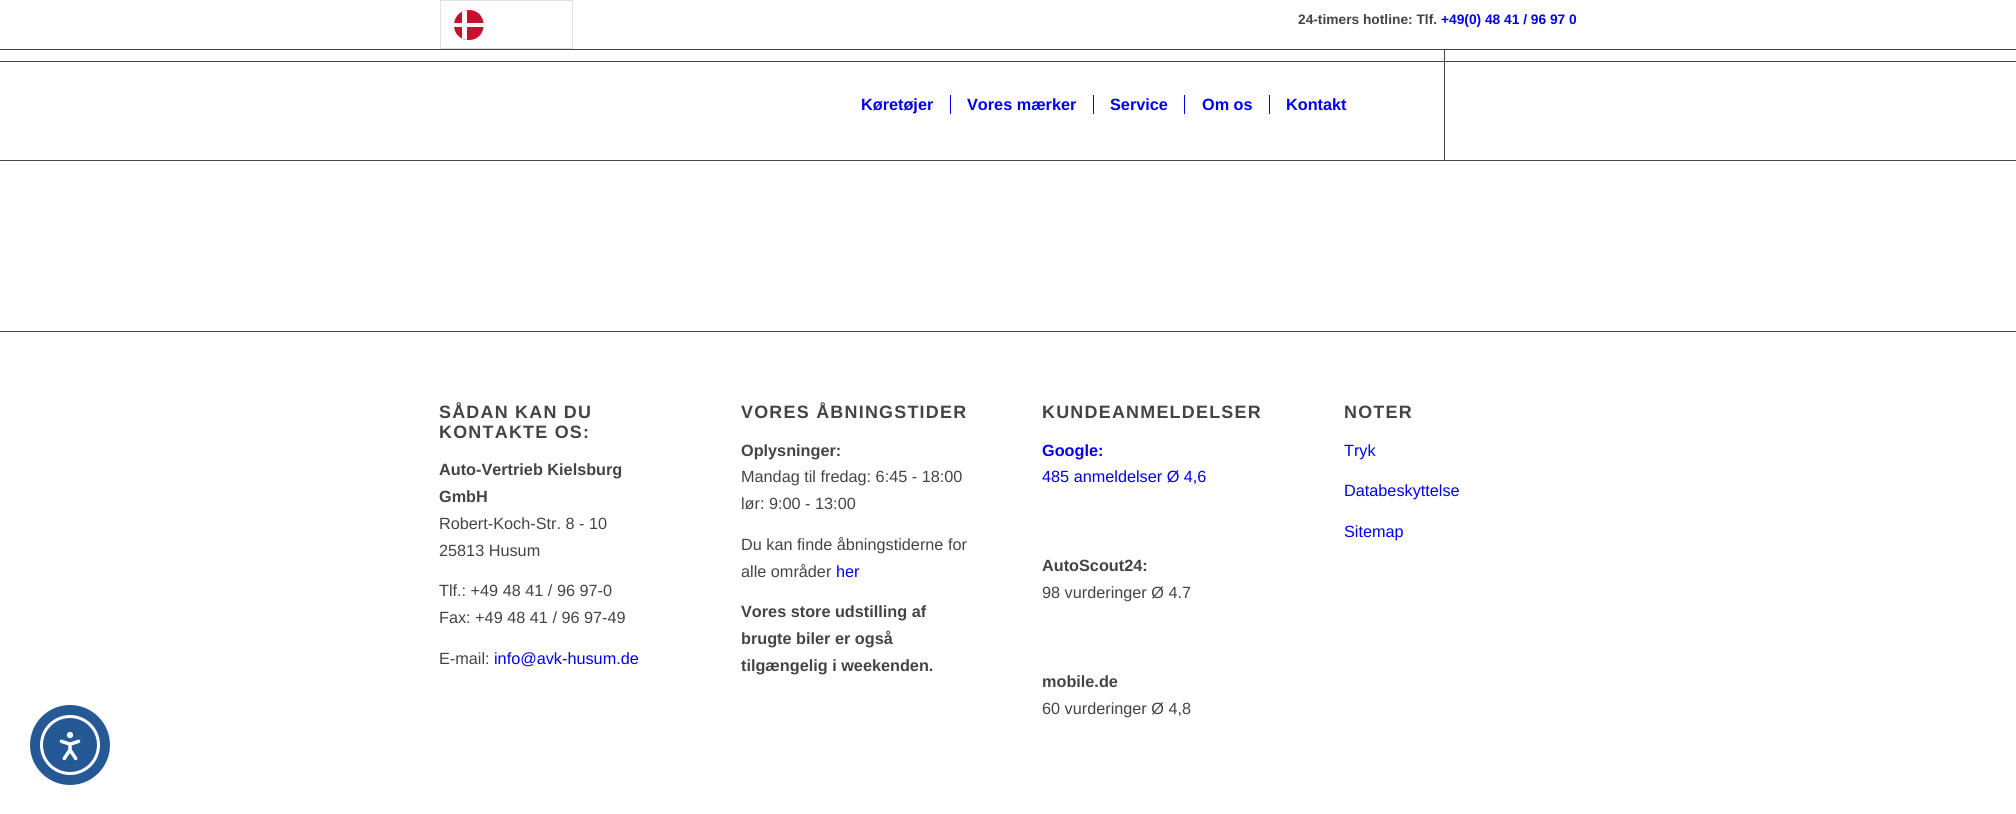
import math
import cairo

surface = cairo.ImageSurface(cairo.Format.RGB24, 2016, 814)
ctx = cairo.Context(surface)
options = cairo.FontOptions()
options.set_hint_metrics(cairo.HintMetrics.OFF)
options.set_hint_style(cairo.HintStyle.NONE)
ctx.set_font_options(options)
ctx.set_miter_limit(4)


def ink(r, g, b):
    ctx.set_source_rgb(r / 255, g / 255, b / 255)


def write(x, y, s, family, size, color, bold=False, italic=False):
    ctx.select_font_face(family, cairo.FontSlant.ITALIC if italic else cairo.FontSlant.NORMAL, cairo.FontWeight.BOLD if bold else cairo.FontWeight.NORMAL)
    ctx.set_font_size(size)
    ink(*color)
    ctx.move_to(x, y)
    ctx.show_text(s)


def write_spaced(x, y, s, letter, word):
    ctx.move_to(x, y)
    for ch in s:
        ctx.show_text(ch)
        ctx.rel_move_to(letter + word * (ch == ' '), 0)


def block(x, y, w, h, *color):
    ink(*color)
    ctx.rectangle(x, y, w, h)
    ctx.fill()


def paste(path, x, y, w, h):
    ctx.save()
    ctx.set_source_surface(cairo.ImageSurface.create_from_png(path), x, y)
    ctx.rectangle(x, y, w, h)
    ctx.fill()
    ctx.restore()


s1 = dict(family="Liberation Sans", size=13.75, color=(68, 68, 68), bold=True)
s2 = dict(family="Liberation Sans", size=13.75, color=(0, 0, 238), bold=True)
s3 = dict(family="Liberation Sans", size=16.25, color=(0, 0, 238), bold=True)
s4 = dict(family="Liberation Sans", size=16.25, color=(68, 68, 68), bold=True)
s5 = dict(family="Liberation Sans", size=16.25, color=(68, 68, 68))
s6 = dict(family="Liberation Sans", size=16.25, color=(0, 0, 238))

ink(255, 255, 255)
ctx.paint()
ctx.rectangle(440.5, 0.5, 132, 48)
ink(224, 224, 224)
ctx.set_line_width(1)
ctx.stroke()
ink(200, 16, 46)
ctx.new_path()
ctx.move_to(469, 10)
ctx.curve_to(453.5, 10, 448.5, 30.5, 461, 38)
ctx.curve_to(463.5, 39.5, 466, 40, 469, 40)
ctx.curve_to(488.5, 40, 488.5, 10, 469, 10)
ctx.close_path()
ctx.fill()
ink(255, 255, 255)
ctx.new_path()
ctx.move_to(462, 11.5)
ctx.curve_to(463.5, 11, 465, 10.5, 467, 10)
ctx.line_to(467, 40)
ctx.curve_to(465, 39.5, 463.5, 39, 462, 38.5)
ctx.close_path()
ctx.fill()
block(454, 23, 30, 4, 255, 255, 255)
write(1298, 24, "24-timers hotline: Tlf.", **s1)
write(1441, 24, "+49(0) 48 41 / 96 97 0", **s2)
block(0, 49, 2016, 1, 68, 68, 68)
block(0, 160, 2016, 1, 68, 68, 68)
block(0, 61, 2016, 1, 68, 68, 68)
block(1444, 50, 1, 110, 68, 68, 68)
write(861, 110, "Køretøjer", **s3)
write(967, 110, "Vores mærker", **s3)
block(950, 95, 1, 19, 0, 0, 238)
write(1110, 110, "Service", **s3)
block(1093, 95, 1, 19, 0, 0, 238)
write(1202, 110, "Om os", **s3)
block(1184, 95, 1, 19, 0, 0, 238)
write(1286, 110, "Kontakt", **s3)
block(1269, 95, 1, 19, 0, 0, 238)
block(0, 331, 2016, 1, 68, 68, 68)
ctx.set_font_size(17.9)
write_spaced(439, 418, "SÅDAN KAN DU", 1.25, 0)
write_spaced(439, 438, "KONTAKTE OS:", 1.25, 0)
write(439, 475, "Auto-Vertrieb Kielsburg", **s4)
write(439, 502, "GmbH", **s4)
write(439, 529, "Robert-Koch-Str. 8 - 10", **s5)
write(439, 556, "25813 Husum", **s5)
write(439, 596, "Tlf.: +49 48 41 / 96 97-0", **s5)
write(439, 623, "Fax: +49 48 41 / 96 97-49", **s5)
write(439, 664, "E-mail:", **s5)
write(494, 664, "info@avk-husum.de", **s6)
ctx.select_font_face("Liberation Sans", cairo.FontSlant.NORMAL, cairo.FontWeight.BOLD)
ctx.set_font_size(17.9)
ink(68, 68, 68)
write_spaced(741, 418, "VORES ÅBNINGSTIDER", 1.25, 0)
write(741, 456, "Oplysninger:", **s4)
write(741, 482, "Mandag til fredag: 6:45 - 18:00", **s5)
write(741, 509, "lør: 9:00 - 13:00", **s5)
write(741, 550, "Du kan finde åbningstiderne for", **s5)
write(741, 577, "alle områder", **s5)
write(836, 577, "her", **s6)
write(741, 617, "Vores store udstilling af", **s4)
write(741, 644, "brugte biler er også", **s4)
write(741, 671, "tilgængelig i weekenden.", **s4)
ctx.set_font_size(17.9)
write_spaced(1042, 418, "KUNDEANMELDELSER", 1.25, 0)
write(1042, 456, "Google:", **s3)
write(1042, 482, "485 anmeldelser Ø 4,6", **s6)
write(1042, 571, "AutoScout24:", **s4)
write(1042, 598, "98 vurderinger Ø 4.7", **s5)
write(1042, 687, "mobile.de", **s4)
write(1042, 714, "60 vurderinger Ø 4,8", **s5)
ctx.select_font_face("Liberation Sans", cairo.FontSlant.NORMAL, cairo.FontWeight.BOLD)
ctx.set_font_size(17.9)
write_spaced(1344, 418, "NOTER", 1.25, 0)
write(1344, 456, "Tryk", **s6)
write(1344, 496, "Databeskyttelse", **s6)
write(1344, 537, "Sitemap", **s6)
ink(37, 89, 150)
ctx.new_path()
ctx.arc(70, 745, 40, 0, 2 * math.pi)
ctx.fill()
ctx.arc(70, 745, 28.5, 0, 2 * math.pi)
ink(255, 255, 255)
ctx.set_line_width(3)
ctx.stroke()
paste("pic1.png", 59, 731, 22, 30)
surface.write_to_png("screenshot.png")
